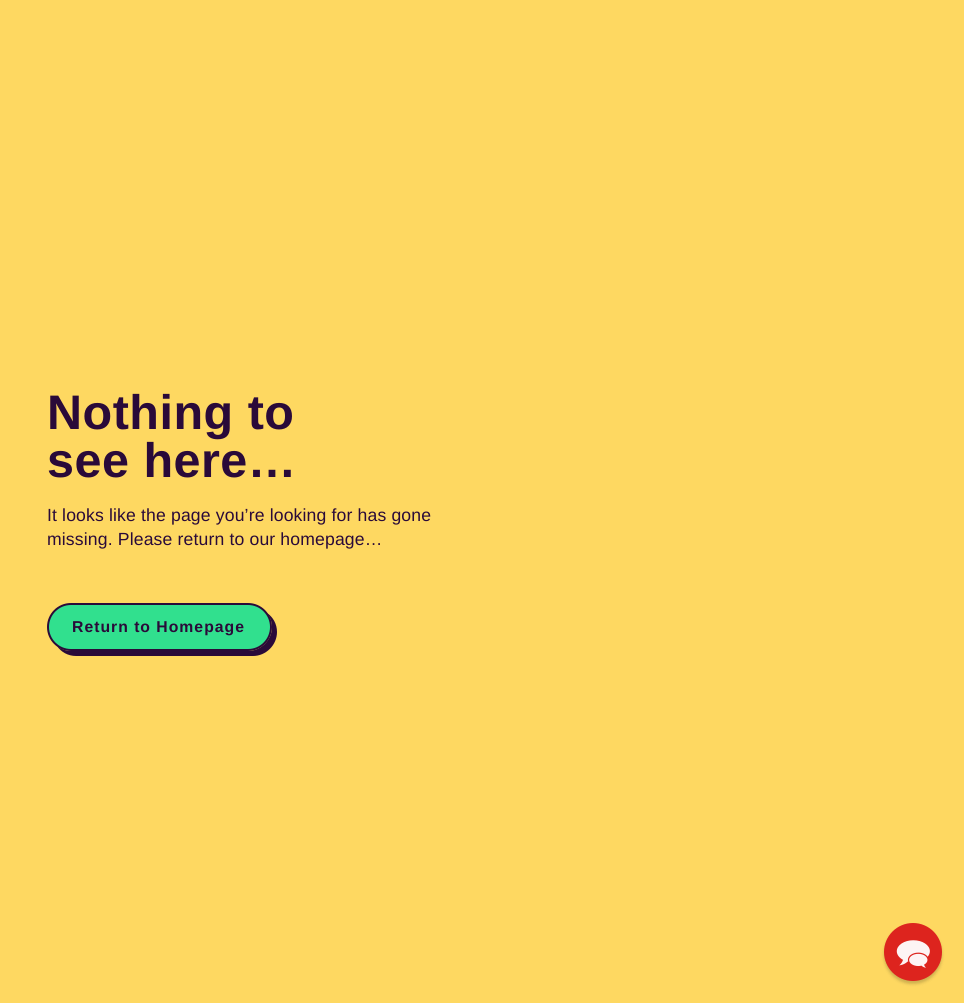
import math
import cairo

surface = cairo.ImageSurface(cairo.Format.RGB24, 964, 1003)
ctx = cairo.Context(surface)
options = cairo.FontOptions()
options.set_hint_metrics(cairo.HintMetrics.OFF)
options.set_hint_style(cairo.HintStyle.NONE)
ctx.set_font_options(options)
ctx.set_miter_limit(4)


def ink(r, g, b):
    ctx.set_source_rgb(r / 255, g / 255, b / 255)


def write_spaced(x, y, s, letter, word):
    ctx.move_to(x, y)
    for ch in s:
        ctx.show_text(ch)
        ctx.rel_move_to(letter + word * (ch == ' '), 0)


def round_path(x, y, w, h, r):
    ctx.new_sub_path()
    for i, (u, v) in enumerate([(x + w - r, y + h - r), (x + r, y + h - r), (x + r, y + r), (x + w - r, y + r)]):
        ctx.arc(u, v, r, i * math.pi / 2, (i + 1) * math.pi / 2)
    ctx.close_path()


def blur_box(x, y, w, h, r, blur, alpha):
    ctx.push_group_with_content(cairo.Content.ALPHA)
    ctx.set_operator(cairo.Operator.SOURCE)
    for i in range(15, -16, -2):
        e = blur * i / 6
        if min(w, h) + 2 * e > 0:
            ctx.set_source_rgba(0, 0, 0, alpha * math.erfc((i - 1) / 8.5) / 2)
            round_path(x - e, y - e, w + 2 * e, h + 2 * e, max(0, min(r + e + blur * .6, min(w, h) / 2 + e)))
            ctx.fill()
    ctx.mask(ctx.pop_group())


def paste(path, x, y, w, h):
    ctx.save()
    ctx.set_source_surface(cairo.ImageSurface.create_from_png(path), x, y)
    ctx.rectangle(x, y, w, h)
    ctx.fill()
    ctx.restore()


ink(254, 216, 97)
ctx.paint()
ctx.select_font_face("Liberation Sans", cairo.FontSlant.NORMAL, cairo.FontWeight.BOLD)
ctx.set_font_size(48.5)
ink(42, 10, 57)
write_spaced(47, 429, "Nothing to", 0.5, 0)
write_spaced(47, 477, "see here…", 0.5, 0)
ctx.select_font_face("Liberation Sans")
ctx.set_font_size(17.6)
write_spaced(47, 521, "It looks like the page you’re looking for has gone", 0.15, 0)
write_spaced(47, 545, "missing. Please return to our homepage…", 0.15, 0)
ctx.new_path()
ctx.move_to(57, 646)
ctx.curve_to(61, 652, 68, 656, 76, 656)
ctx.line_to(253, 656)
ctx.curve_to(266, 656, 277, 645, 277, 632)
ctx.curve_to(277, 624, 273, 617, 267, 613)
ctx.curve_to(270, 617, 272, 622, 272, 627)
ctx.curve_to(272, 640, 261, 651, 248, 651)
ctx.line_to(71, 651)
ctx.curve_to(66, 651, 61, 649, 57, 646)
ctx.close_path()
ctx.fill()
ink(49, 224, 142)
round_path(48, 604, 223, 46, 23)
ctx.fill_preserve()
ink(42, 10, 57)
ctx.stroke()
ctx.select_font_face("Liberation Sans", cairo.FontSlant.NORMAL, cairo.FontWeight.BOLD)
ctx.set_font_size(15.75)
write_spaced(72, 632, "Return to Homepage", 1, 0)
ink(13, 11, 5)
blur_box(884, 926, 58, 58, 29, 1.5, 0.2)
ink(221, 36, 30)
ctx.arc(913, 952, 29, 0, 2 * math.pi)
ctx.fill()
paste("pic1.png", 896, 940, 34, 28)
surface.write_to_png("screenshot.png")
